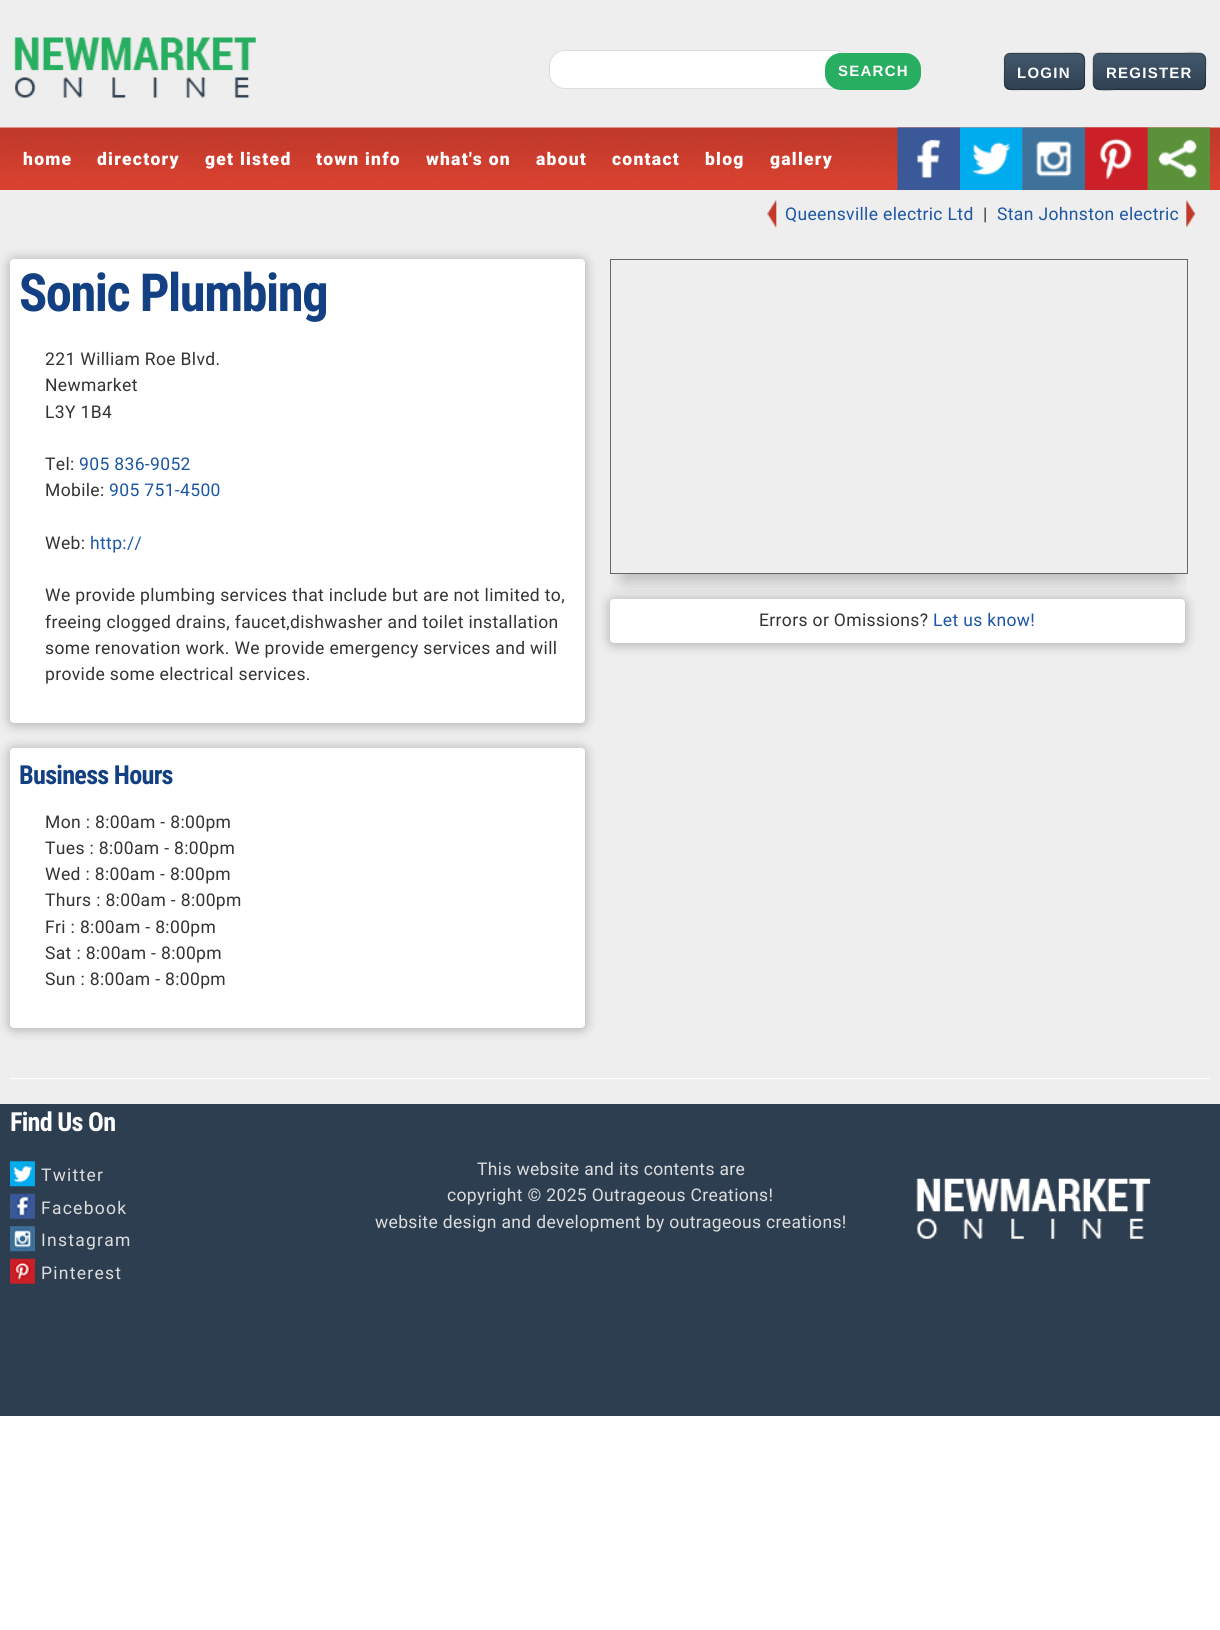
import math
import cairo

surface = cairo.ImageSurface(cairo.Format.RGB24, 1220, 1630)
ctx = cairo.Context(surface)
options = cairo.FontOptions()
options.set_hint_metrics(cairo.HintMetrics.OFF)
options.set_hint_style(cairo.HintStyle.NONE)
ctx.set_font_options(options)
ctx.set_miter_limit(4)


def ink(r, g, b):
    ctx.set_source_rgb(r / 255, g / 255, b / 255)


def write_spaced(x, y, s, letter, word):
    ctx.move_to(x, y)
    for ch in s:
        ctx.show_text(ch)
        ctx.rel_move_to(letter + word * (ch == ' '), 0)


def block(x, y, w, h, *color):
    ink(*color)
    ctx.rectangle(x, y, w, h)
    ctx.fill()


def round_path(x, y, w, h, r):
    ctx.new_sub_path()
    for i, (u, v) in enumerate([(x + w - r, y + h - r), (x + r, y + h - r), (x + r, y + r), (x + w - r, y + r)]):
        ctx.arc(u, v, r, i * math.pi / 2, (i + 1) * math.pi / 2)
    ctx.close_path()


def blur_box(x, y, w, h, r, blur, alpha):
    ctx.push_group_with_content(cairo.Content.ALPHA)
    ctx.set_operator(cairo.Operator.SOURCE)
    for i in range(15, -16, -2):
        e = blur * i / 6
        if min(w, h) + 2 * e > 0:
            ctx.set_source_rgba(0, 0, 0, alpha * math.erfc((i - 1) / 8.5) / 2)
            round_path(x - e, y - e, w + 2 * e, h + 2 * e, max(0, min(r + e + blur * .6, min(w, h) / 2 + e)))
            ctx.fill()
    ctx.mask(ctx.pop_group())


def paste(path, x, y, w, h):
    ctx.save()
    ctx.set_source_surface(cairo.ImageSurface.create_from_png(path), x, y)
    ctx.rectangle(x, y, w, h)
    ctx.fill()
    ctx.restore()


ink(255, 255, 255)
ctx.paint()
block(0, 0, 1220, 1104, 238, 238, 238)
paste("pic1.png", 0, 127, 1220, 63)
paste("pic2.png", 14, 37, 242, 61)
ink(255, 255, 255)
round_path(549.5, 50.5, 301, 38, 15.5)
ctx.fill_preserve()
ink(221, 221, 221)
ctx.set_line_width(1)
ctx.stroke()
ink(39, 174, 96)
round_path(825, 53, 96, 37, 16)
ctx.fill()
ctx.select_font_face("Liberation Sans", cairo.FontSlant.NORMAL, cairo.FontWeight.BOLD)
ctx.set_font_size(15)
ink(255, 255, 255)
write_spaced(838, 76, "SEARCH", 1.25, 0)
ink(52, 73, 94)
round_path(1004, 53, 81, 37, 6)
ctx.fill()
paste("pic3.png", 1004, 54, 81, 36)
ctx.new_path()
ctx.move_to(1082.5, 55)
ctx.curve_to(1086, 58, 1084.5, 67.5, 1084.5, 71)
ctx.curve_to(1084.5, 90.5, 1086.5, 89.5, 1067.5, 89.5)
ctx.line_to(1021.5, 89.5)
ctx.curve_to(1019, 89.5, 1009.5, 91, 1006, 87.5)
ctx.set_source_rgba(0, 0, 0, 0.3)
ctx.set_line_width(1.2)
ctx.stroke()
ctx.new_path()
ctx.move_to(1006, 87.5)
ctx.curve_to(1003, 84.5, 1004.5, 75, 1004.5, 71)
ctx.curve_to(1004.5, 52, 1002, 53, 1021.5, 53)
ctx.line_to(1067.5, 53)
ctx.curve_to(1069.5, 53, 1079.5, 51.5, 1082.5, 55)
ctx.set_source_rgba(0, 0, 0, 0.2)
ctx.stroke()
ink(255, 255, 255)
write_spaced(1017, 78, "LOGIN", 1.25, 0)
ink(52, 73, 94)
round_path(1093, 53, 113, 37, 6)
ctx.fill()
paste("pic4.png", 1092, 54, 114, 36)
ctx.new_path()
ctx.move_to(1204, 55)
ctx.curve_to(1207, 58, 1205.5, 67.5, 1205.5, 71)
ctx.curve_to(1205.5, 93, 1207, 89.5, 1183, 89.5)
ctx.line_to(1115.5, 89.5)
ctx.curve_to(1114, 89.5, 1099, 92, 1095, 87.5)
ctx.set_source_rgba(0, 0, 0, 0.3)
ctx.stroke()
ctx.new_path()
ctx.move_to(1095, 87.5)
ctx.curve_to(1091.5, 84.5, 1093, 75, 1093, 71)
ctx.curve_to(1093, 49.5, 1092, 53, 1115.5, 53)
ctx.line_to(1183, 53)
ctx.curve_to(1185, 53, 1200, 50.5, 1204, 55)
ctx.set_source_rgba(0, 0, 0, 0.2)
ctx.stroke()
ink(255, 255, 255)
write_spaced(1106, 78, "REGISTER", 1.25, 0)
ctx.select_font_face("Roboto Black")
ctx.set_font_size(17.5)
write_spaced(23, 165, "home", 1.25, 0)
write_spaced(97, 165, "directory", 1.25, 0)
write_spaced(205, 165, "get listed", 1.25, 0)
write_spaced(316, 165, "town info", 1.25, 0)
write_spaced(426, 165, "what's on", 1.25, 0)
write_spaced(536, 165, "about", 1.25, 0)
write_spaced(612, 165, "contact", 1.25, 0)
write_spaced(705, 165, "blog", 1.25, 0)
write_spaced(770, 165, "gallery", 1.25, 0)
paste("pic5.png", 897, 127, 63, 63)
paste("pic7.png", 1022, 127, 63, 63)
paste("pic6.png", 960, 127, 63, 63)
paste("pic9.png", 1147, 127, 63, 63)
paste("pic8.png", 1085, 127, 63, 63)
block(10, 1078, 1200, 1, 255, 255, 255)
paste("pic10.png", 767, 200, 10, 28)
ctx.select_font_face("Roboto")
ink(28, 86, 165)
write_spaced(785, 220, "Queensville electric Ltd", 0.35, 0)
ink(51, 51, 51)
write_spaced(983, 220, "|", 0.35, 0)
ink(28, 86, 165)
write_spaced(997, 220, "Stan Johnston electric", 0.35, 0)
paste("pic11.png", 1186, 200, 10, 28)
ink(0, 0, 0)
blur_box(10, 260, 575, 464, 4, 6, 0.3)
ink(255, 255, 255)
round_path(10, 259, 575, 464, 4)
ctx.fill()
ctx.select_font_face("Roboto Condensed", cairo.FontSlant.NORMAL, cairo.FontWeight.BOLD)
ctx.set_font_size(52.5)
ink(18, 64, 130)
write_spaced(19, 311, "Sonic Plumbing", -1.5, 0)
ctx.select_font_face("Roboto")
ctx.set_font_size(17.5)
ink(51, 51, 51)
write_spaced(45, 365, "221 William Roe Blvd.", 0.35, 0)
write_spaced(45, 391, "Newmarket", 0.35, 0)
write_spaced(45, 418, "L3Y 1B4", 0.35, 0)
write_spaced(45, 470, "Tel:", 0.35, 0)
ink(28, 86, 165)
write_spaced(79, 470, "905 836-9052", 0.35, 0)
ink(51, 51, 51)
write_spaced(45, 496, "Mobile:", 0.35, 0)
ink(28, 86, 165)
write_spaced(109, 496, "905 751-4500", 0.35, 0)
ink(51, 51, 51)
write_spaced(45, 549, "Web:", 0.35, 0)
ink(28, 86, 165)
write_spaced(90, 549, "http://", 0.35, 0)
ink(51, 51, 51)
write_spaced(45, 601, "We provide plumbing services that include but are not limited to,", 0.35, 0)
write_spaced(45, 628, "freeing clogged drains, faucet,dishwasher and toilet installation", 0.35, 0)
write_spaced(45, 654, "some renovation work. We provide emergency services and will", 0.35, 0)
write_spaced(45, 680, "provide some electrical services.", 0.35, 0)
ink(0, 0, 0)
blur_box(10, 749, 575, 280, 4, 6, 0.3)
ink(255, 255, 255)
round_path(10, 748, 575, 280, 4)
ctx.fill()
ctx.select_font_face("Roboto Condensed", cairo.FontSlant.NORMAL, cairo.FontWeight.BOLD)
ctx.set_font_size(26.25)
ink(18, 64, 130)
write_spaced(19, 784, "Business Hours", -0.75, 0)
ctx.select_font_face("Roboto")
ctx.set_font_size(17.5)
ink(51, 51, 51)
write_spaced(45, 828, "Mon : 8:00am - 8:00pm", 0.35, 0)
write_spaced(45, 854, "Tues : 8:00am - 8:00pm", 0.35, 0)
write_spaced(45, 880, "Wed : 8:00am - 8:00pm", 0.35, 0)
write_spaced(45, 906, "Thurs : 8:00am - 8:00pm", 0.35, 0)
write_spaced(45, 933, "Fri : 8:00am - 8:00pm", 0.35, 0)
write_spaced(45, 959, "Sat : 8:00am - 8:00pm", 0.35, 0)
write_spaced(45, 985, "Sun : 8:00am - 8:00pm", 0.35, 0)
ctx.save()
ctx.rectangle(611, 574, 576, 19)
ctx.clip()
ink(0, 0, 0)
blur_box(623, 290, 552, 290, 0, 9.5, 0.25)
ctx.restore()
ctx.rectangle(610.5, 259.5, 577, 314)
ink(102, 102, 102)
ctx.set_line_width(1)
ctx.stroke()
ink(0, 0, 0)
blur_box(610, 600, 575, 44, 4, 6, 0.3)
ink(255, 255, 255)
round_path(610, 599, 575, 44, 4)
ctx.fill()
ink(51, 51, 51)
write_spaced(759, 626, "Errors or Omissions?", 0.35, 0)
ink(28, 86, 165)
write_spaced(933, 626, "Let us know!", 0.35, 0)
block(0, 1104, 1220, 312, 44, 62, 80)
ctx.select_font_face("Roboto Condensed", cairo.FontSlant.NORMAL, cairo.FontWeight.BOLD)
ctx.set_font_size(26.25)
ink(255, 255, 255)
write_spaced(10, 1131, "Find Us On", -0.75, 0)
paste("pic12.png", 10, 1161, 25, 26)
ctx.select_font_face("Roboto")
ctx.set_font_size(17.5)
ink(221, 221, 221)
write_spaced(41, 1181, "Twitter", 1.25, 0)
paste("pic13.png", 10, 1193, 25, 26)
write_spaced(41, 1214, "Facebook", 1.25, 0)
paste("pic14.png", 10, 1226, 25, 26)
write_spaced(41, 1246, "Instagram", 1.25, 0)
paste("pic15.png", 10, 1258, 25, 26)
write_spaced(41, 1279, "Pinterest", 1.25, 0)
write_spaced(477, 1175, "This website and its contents are", 0.35, 0)
write_spaced(447, 1201, "copyright © 2025 Outrageous Creations!", 0.35, 0)
write_spaced(375, 1228, "website design and development by outrageous creations!", 0.35, 0)
paste("pic16.png", 916, 1178, 235, 61)
surface.write_to_png("screenshot.png")
